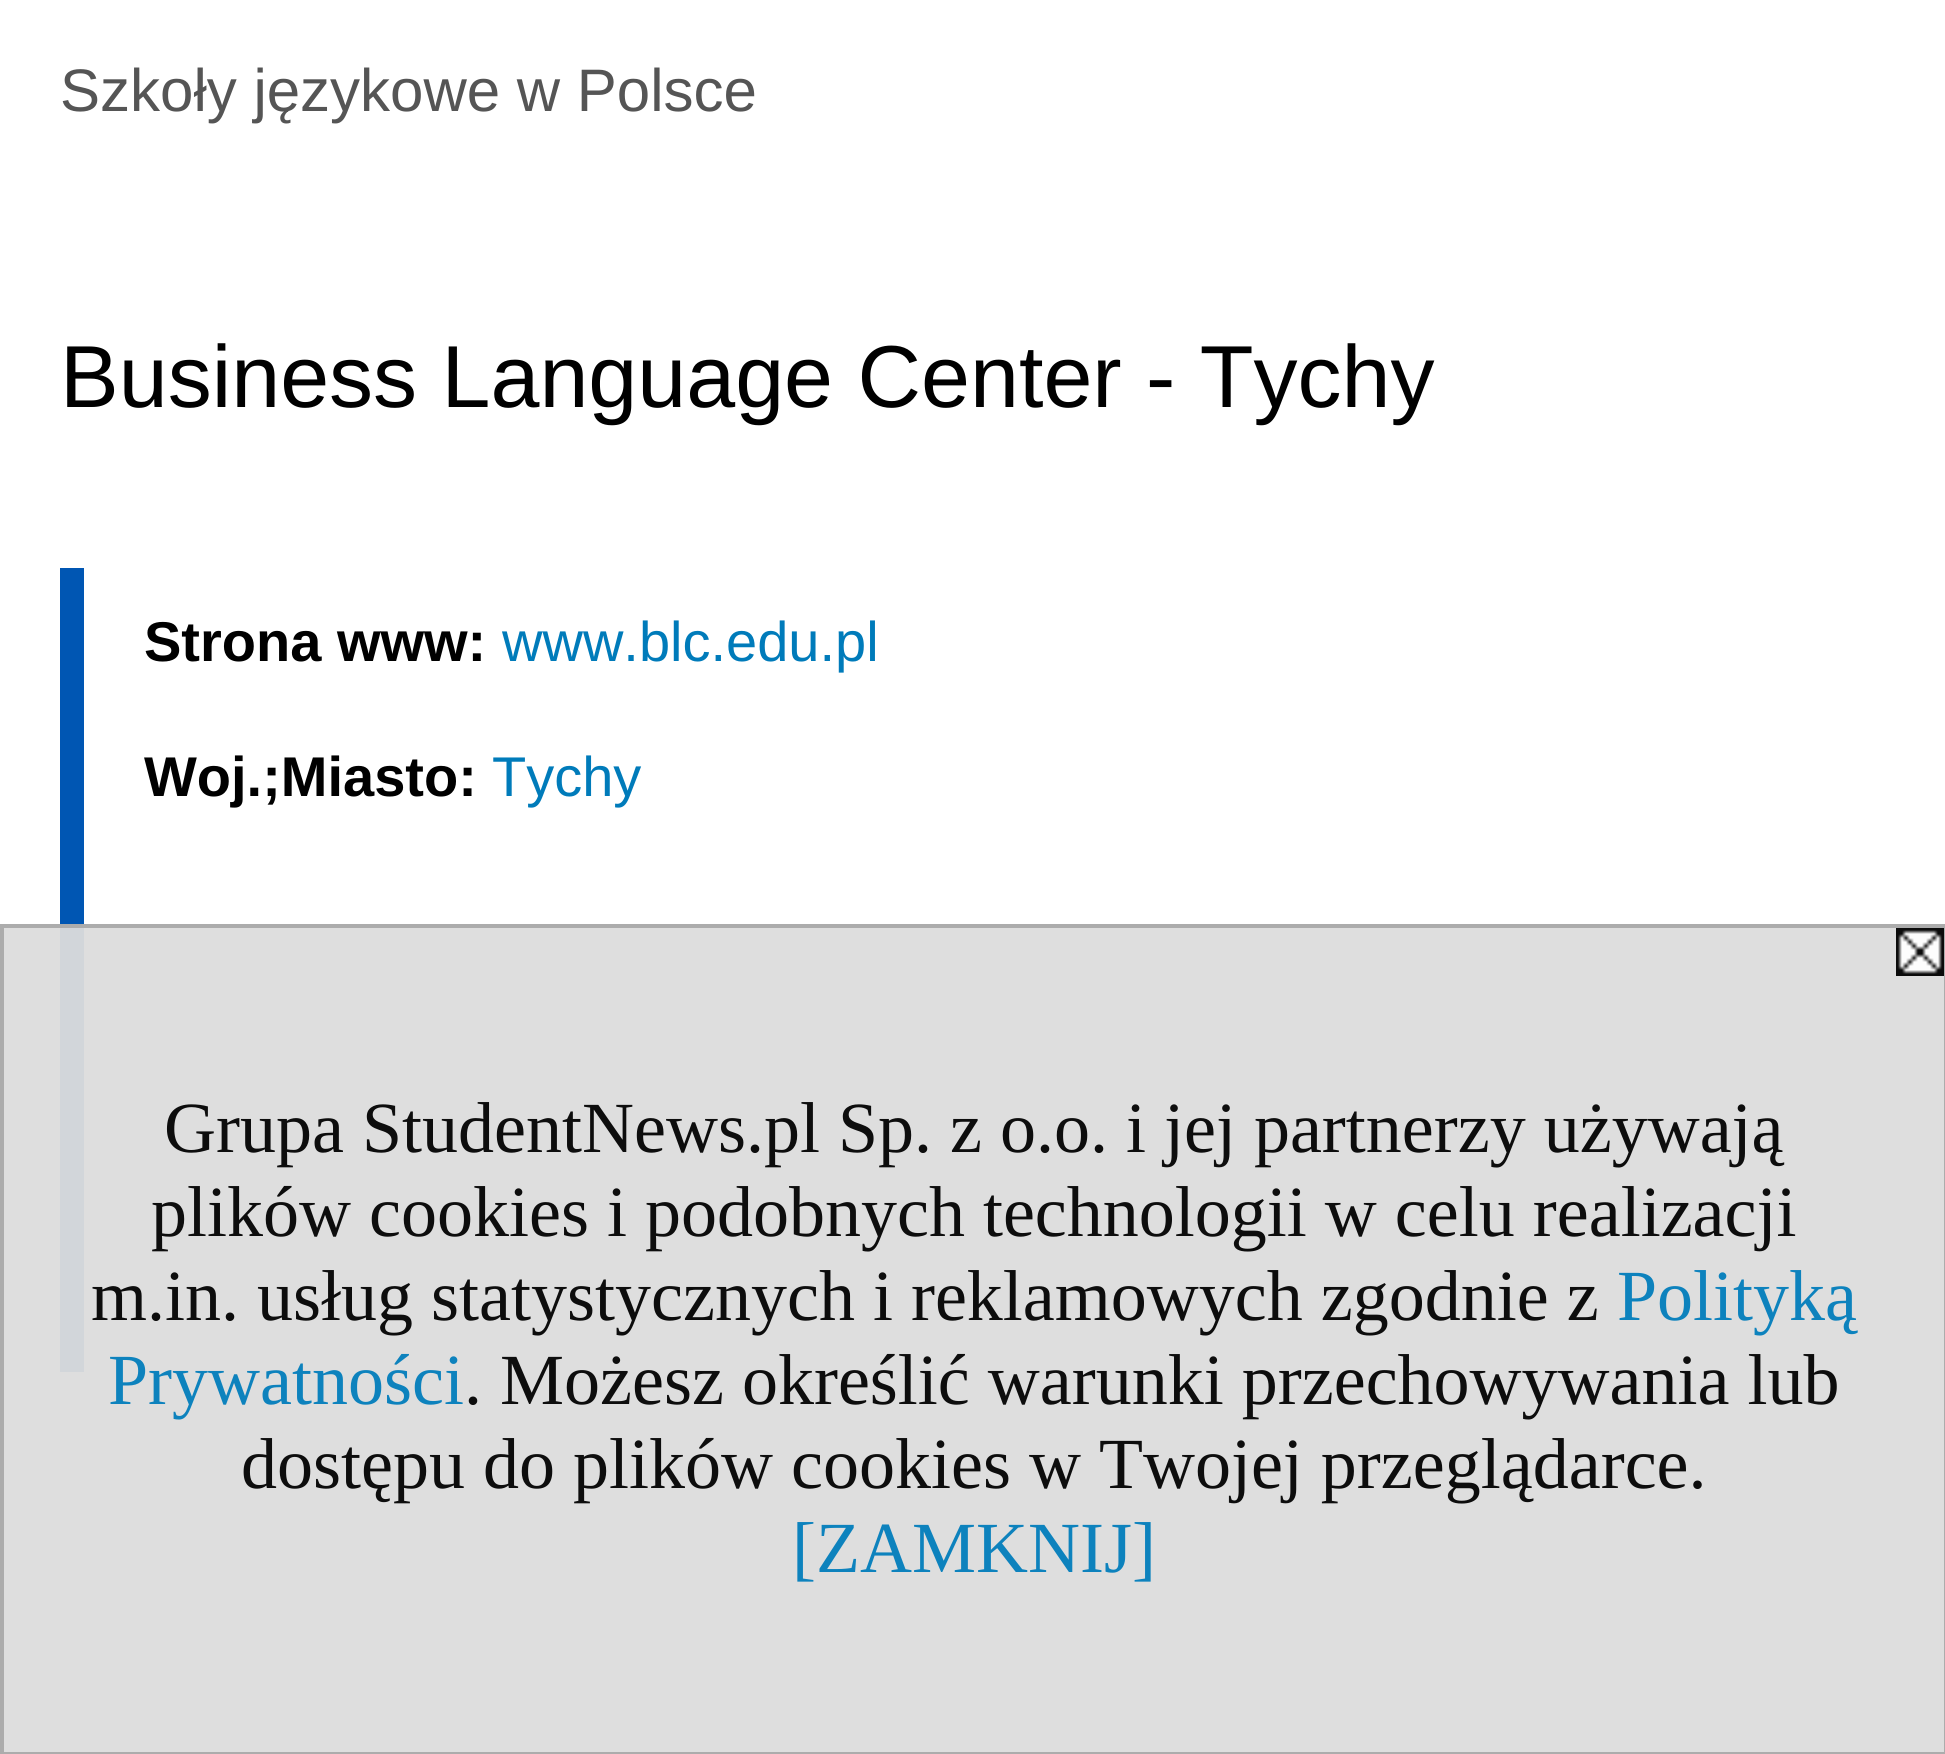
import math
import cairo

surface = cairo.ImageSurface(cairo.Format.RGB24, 1945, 1754)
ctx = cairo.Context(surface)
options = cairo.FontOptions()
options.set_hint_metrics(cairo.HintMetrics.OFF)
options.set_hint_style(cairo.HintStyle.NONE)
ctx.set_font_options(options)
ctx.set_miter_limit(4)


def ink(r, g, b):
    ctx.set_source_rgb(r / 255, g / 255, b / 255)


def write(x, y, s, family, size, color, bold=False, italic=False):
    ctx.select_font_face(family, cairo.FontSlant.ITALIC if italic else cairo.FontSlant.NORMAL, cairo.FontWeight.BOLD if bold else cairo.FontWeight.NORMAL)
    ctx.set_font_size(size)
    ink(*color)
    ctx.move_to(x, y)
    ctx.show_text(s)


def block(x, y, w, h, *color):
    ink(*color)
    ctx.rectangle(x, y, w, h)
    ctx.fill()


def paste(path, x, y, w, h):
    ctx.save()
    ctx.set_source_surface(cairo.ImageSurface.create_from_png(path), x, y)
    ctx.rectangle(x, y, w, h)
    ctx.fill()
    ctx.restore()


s1 = dict(family="Liberation Sans", size=60, color=(85, 85, 85))
s2 = dict(family="Liberation Sans", size=88, color=(0, 0, 0))
s3 = dict(family="Liberation Sans", size=56, color=(0, 0, 0), bold=True)
s4 = dict(family="Liberation Sans", size=56, color=(0, 123, 186))
s5 = dict(family="Liberation Serif", size=72, color=(13, 13, 13))
s6 = dict(family="Liberation Serif", size=72, color=(13, 130, 189))

ink(255, 255, 255)
ctx.paint()
write(60, 111, "Szkoły językowe w Polsce", **s1)
write(60, 407, "Business Language Center - Tychy", **s2)
block(60, 568, 24, 804, 0, 86, 179)
write(144, 661, "Strona www:", **s3)
write(502, 661, "www.blc.edu.pl", **s4)
write(144, 796, "Woj.;Miasto:", **s3)
write(492, 796, "Tychy", **s4)
ctx.set_source_rgba(0.867, 0.867, 0.867, 0.95)
ctx.rectangle(0, 924, 1945, 830)
ctx.fill()
ctx.rectangle(2, 926, 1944, 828)
ctx.set_source_rgba(0.667, 0.667, 0.667, 0.95)
ctx.set_line_width(4)
ctx.stroke()
paste("pic1.png", 1896, 928, 48, 48)
write(164, 1152, "Grupa StudentNews.pl Sp. z o.o. i jej partnerzy używają", **s5)
write(151, 1236, "plików cookies i podobnych technologii w celu realizacji", **s5)
write(91, 1320, "m.in. usług statystycznych i reklamowych zgodnie z", **s5)
write(1617, 1320, "Polityką", **s6)
write(108, 1404, "Prywatności", **s6)
write(464, 1404, ". Możesz określić warunki przechowywania lub", **s5)
write(241, 1488, "dostępu do plików cookies w Twojej przeglądarce.", **s5)
write(792, 1572, "[ZAMKNIJ]", **s6)
surface.write_to_png("screenshot.png")
